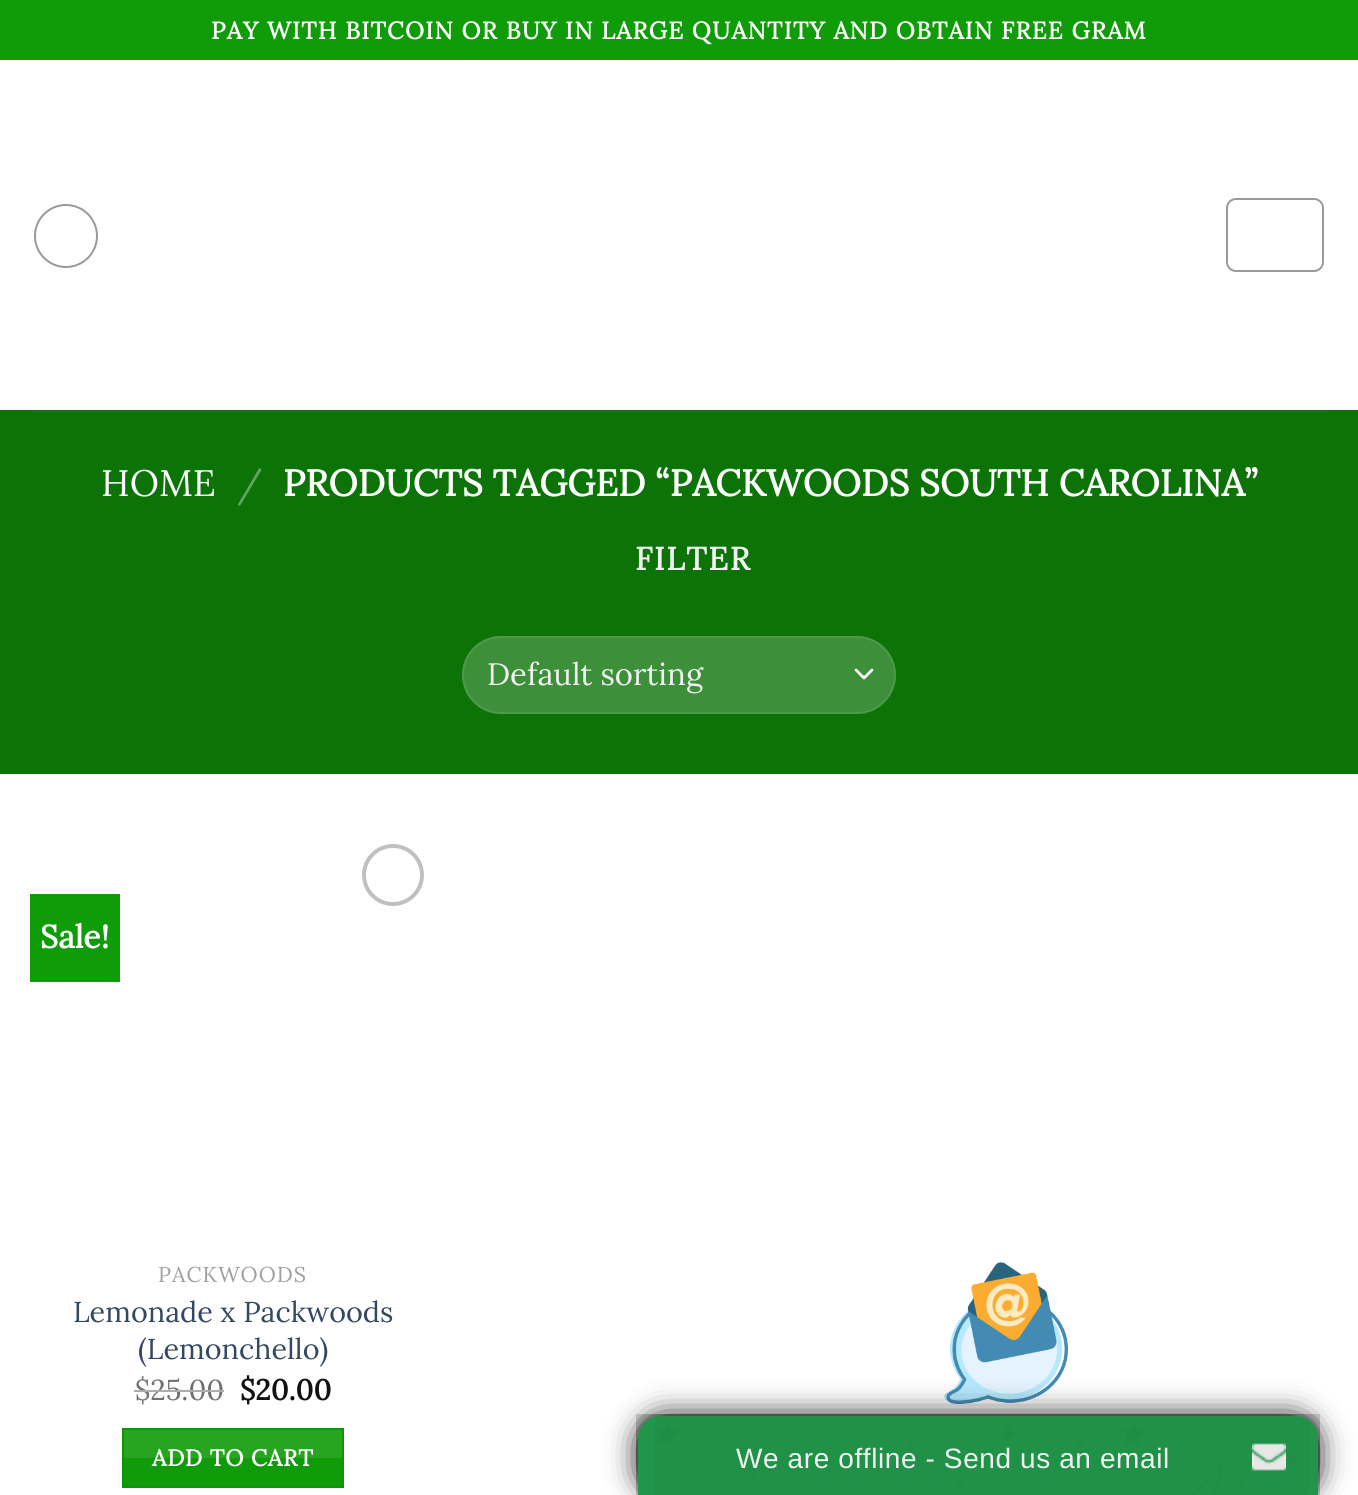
import math
import cairo

surface = cairo.ImageSurface(cairo.Format.RGB24, 1358, 1495)
ctx = cairo.Context(surface)
options = cairo.FontOptions()
options.set_hint_metrics(cairo.HintMetrics.OFF)
options.set_hint_style(cairo.HintStyle.NONE)
ctx.set_font_options(options)
ctx.set_miter_limit(4)


def ink(r, g, b):
    ctx.set_source_rgb(r / 255, g / 255, b / 255)


def write(x, y, s, family, size, color, bold=False, italic=False):
    ctx.select_font_face(family, cairo.FontSlant.ITALIC if italic else cairo.FontSlant.NORMAL, cairo.FontWeight.BOLD if bold else cairo.FontWeight.NORMAL)
    ctx.set_font_size(size)
    ink(*color)
    ctx.move_to(x, y)
    ctx.show_text(s)


def write_spaced(x, y, s, letter, word):
    ctx.move_to(x, y)
    for ch in s:
        ctx.show_text(ch)
        ctx.rel_move_to(letter + word * (ch == ' '), 0)


def block(x, y, w, h, *color):
    ink(*color)
    ctx.rectangle(x, y, w, h)
    ctx.fill()


def round_path(x, y, w, h, r):
    ctx.new_sub_path()
    for i, (u, v) in enumerate([(x + w - r, y + h - r), (x + r, y + h - r), (x + r, y + r), (x + w - r, y + r)]):
        ctx.arc(u, v, r, i * math.pi / 2, (i + 1) * math.pi / 2)
    ctx.close_path()


def blur_box(x, y, w, h, r, blur, alpha):
    ctx.push_group_with_content(cairo.Content.ALPHA)
    ctx.set_operator(cairo.Operator.SOURCE)
    for i in range(15, -16, -2):
        e = blur * i / 6
        if min(w, h) + 2 * e > 0:
            ctx.set_source_rgba(0, 0, 0, alpha * math.erfc((i - 1) / 8.5) / 2)
            round_path(x - e, y - e, w + 2 * e, h + 2 * e, max(0, min(r + e + blur * .6, min(w, h) / 2 + e)))
            ctx.fill()
    ctx.mask(ctx.pop_group())


def paste(path, x, y, w, h):
    ctx.save()
    ctx.set_source_surface(cairo.ImageSurface.create_from_png(path), x, y)
    ctx.rectangle(x, y, w, h)
    ctx.fill()
    ctx.restore()


s1 = dict(family="Lora", size=36.8, color=(255, 255, 255))
s2 = dict(family="Lora", size=36.8, color=(97, 165, 94))
s3 = dict(family="Lora", size=36.8, color=(255, 255, 255), bold=True)
s4 = dict(family="Lora", size=31, color=(241, 241, 241))
s5 = dict(family="Lora", size=32, color=(255, 255, 255), bold=True)
s6 = dict(family="Lora", size=28.75, color=(51, 72, 98))
s7 = dict(family="Lora", size=28.75, color=(112, 112, 112))
s8 = dict(family="Lora", size=28.75, color=(17, 17, 17), bold=True)

ink(255, 255, 255)
ctx.paint()
block(0, 0, 1358, 60, 16, 155, 9)
ctx.select_font_face("Lora", cairo.FontSlant.NORMAL, cairo.FontWeight.BOLD)
ctx.set_font_size(24)
ink(255, 255, 255)
write_spaced(211, 39, "PAY WITH BITCOIN OR BUY IN LARGE QUANTITY AND OBTAIN FREE GRAM", 1.2, 0)
ctx.new_path()
ctx.arc(66, 236, 31, 0, 2 * math.pi)
ink(153, 153, 153)
ctx.stroke()
round_path(1227, 199, 96, 72, 9)
ctx.stroke()
block(0, 410, 1358, 364, 12, 116, 7)
block(30, 410, 1298, 2, 23, 116, 18)
write(101, 496, "HOME", **s1)
write(237, 496, "/", **s2)
write(283, 496, "PRODUCTS TAGGED “PACKWOODS SOUTH CAROLINA”", **s3)
ctx.set_font_size(32)
ink(241, 241, 241)
write_spaced(635, 570, "FILTER", 1.5, 0)
ink(61, 144, 57)
round_path(462, 636, 434, 78, 39)
ctx.fill()
ctx.new_path()
ctx.move_to(856, 670)
ctx.line_to(864, 678)
ctx.line_to(872, 670)
ink(255, 255, 255)
ctx.set_line_width(2.7)
ctx.set_line_cap(cairo.LineCap.ROUND)
ctx.set_line_join(cairo.LineJoin.ROUND)
ctx.stroke()
round_path(463, 637, 432, 76, 38)
ctx.set_source_rgba(1, 1, 1, 0.09)
ctx.set_line_width(2)
ctx.set_line_cap(cairo.LineCap.BUTT)
ctx.set_line_join(cairo.LineJoin.MITER)
ctx.stroke()
write(487, 685, "Default sorting", **s4)
block(30, 894, 90, 88, 16, 155, 9)
write(40, 948, "Sale!", **s5)
ctx.new_path()
ctx.arc(393, 875, 29, 0, 2 * math.pi)
ink(192, 192, 192)
ctx.set_line_width(4)
ctx.stroke()
ctx.select_font_face("Lora")
ctx.set_font_size(21.5)
ink(160, 160, 160)
write_spaced(158, 1282, "PACKWOODS", 1, 0)
write(73, 1322, "Lemonade x Packwoods", **s6)
write(138, 1359, "(Lemonchello)", **s6)
write(135, 1400, "$25.00", **s7)
block(134, 1390, 90, 2, 173, 173, 173)
write(240, 1400, "$20.00", **s8)
ink(16, 155, 9)
ctx.rectangle(123, 1429, 220, 58)
ctx.fill_preserve()
ink(15, 147, 9)
ctx.set_line_width(2)
ctx.stroke()
ctx.set_source_rgba(1, 1, 1, 0.1)
ctx.rectangle(124, 1430, 218, 28)
ctx.fill()
ctx.set_font_size(23)
ink(255, 255, 255)
write_spaced(152, 1466, "ADD TO CART", 0.75, 0)
paste("pic1.png", 944, 1262, 124, 142)
ink(17, 17, 17)
blur_box(638, 1416, 680, 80, 26, 15, 1)
paste("pic2.png", 636, 1414, 684, 81)
ink(33, 150, 74)
ctx.new_path()
ctx.move_to(660, 1416)
ctx.line_to(1296, 1416)
ctx.curve_to(1308, 1416, 1318, 1426, 1318, 1438)
ctx.line_to(1318, 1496)
ctx.line_to(638, 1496)
ctx.line_to(638, 1438)
ctx.curve_to(638, 1426, 648, 1416, 660, 1416)
ctx.close_path()
ctx.fill()
paste("pic3.png", 655, 1416, 654, 79)
ctx.select_font_face("Liberation Sans")
ctx.set_font_size(28)
ink(241, 241, 241)
write_spaced(736, 1468, "We are offline - Send us an email", 0.6, 0)
paste("pic4.png", 1252, 1443, 34, 28)
surface.write_to_png("screenshot.png")
